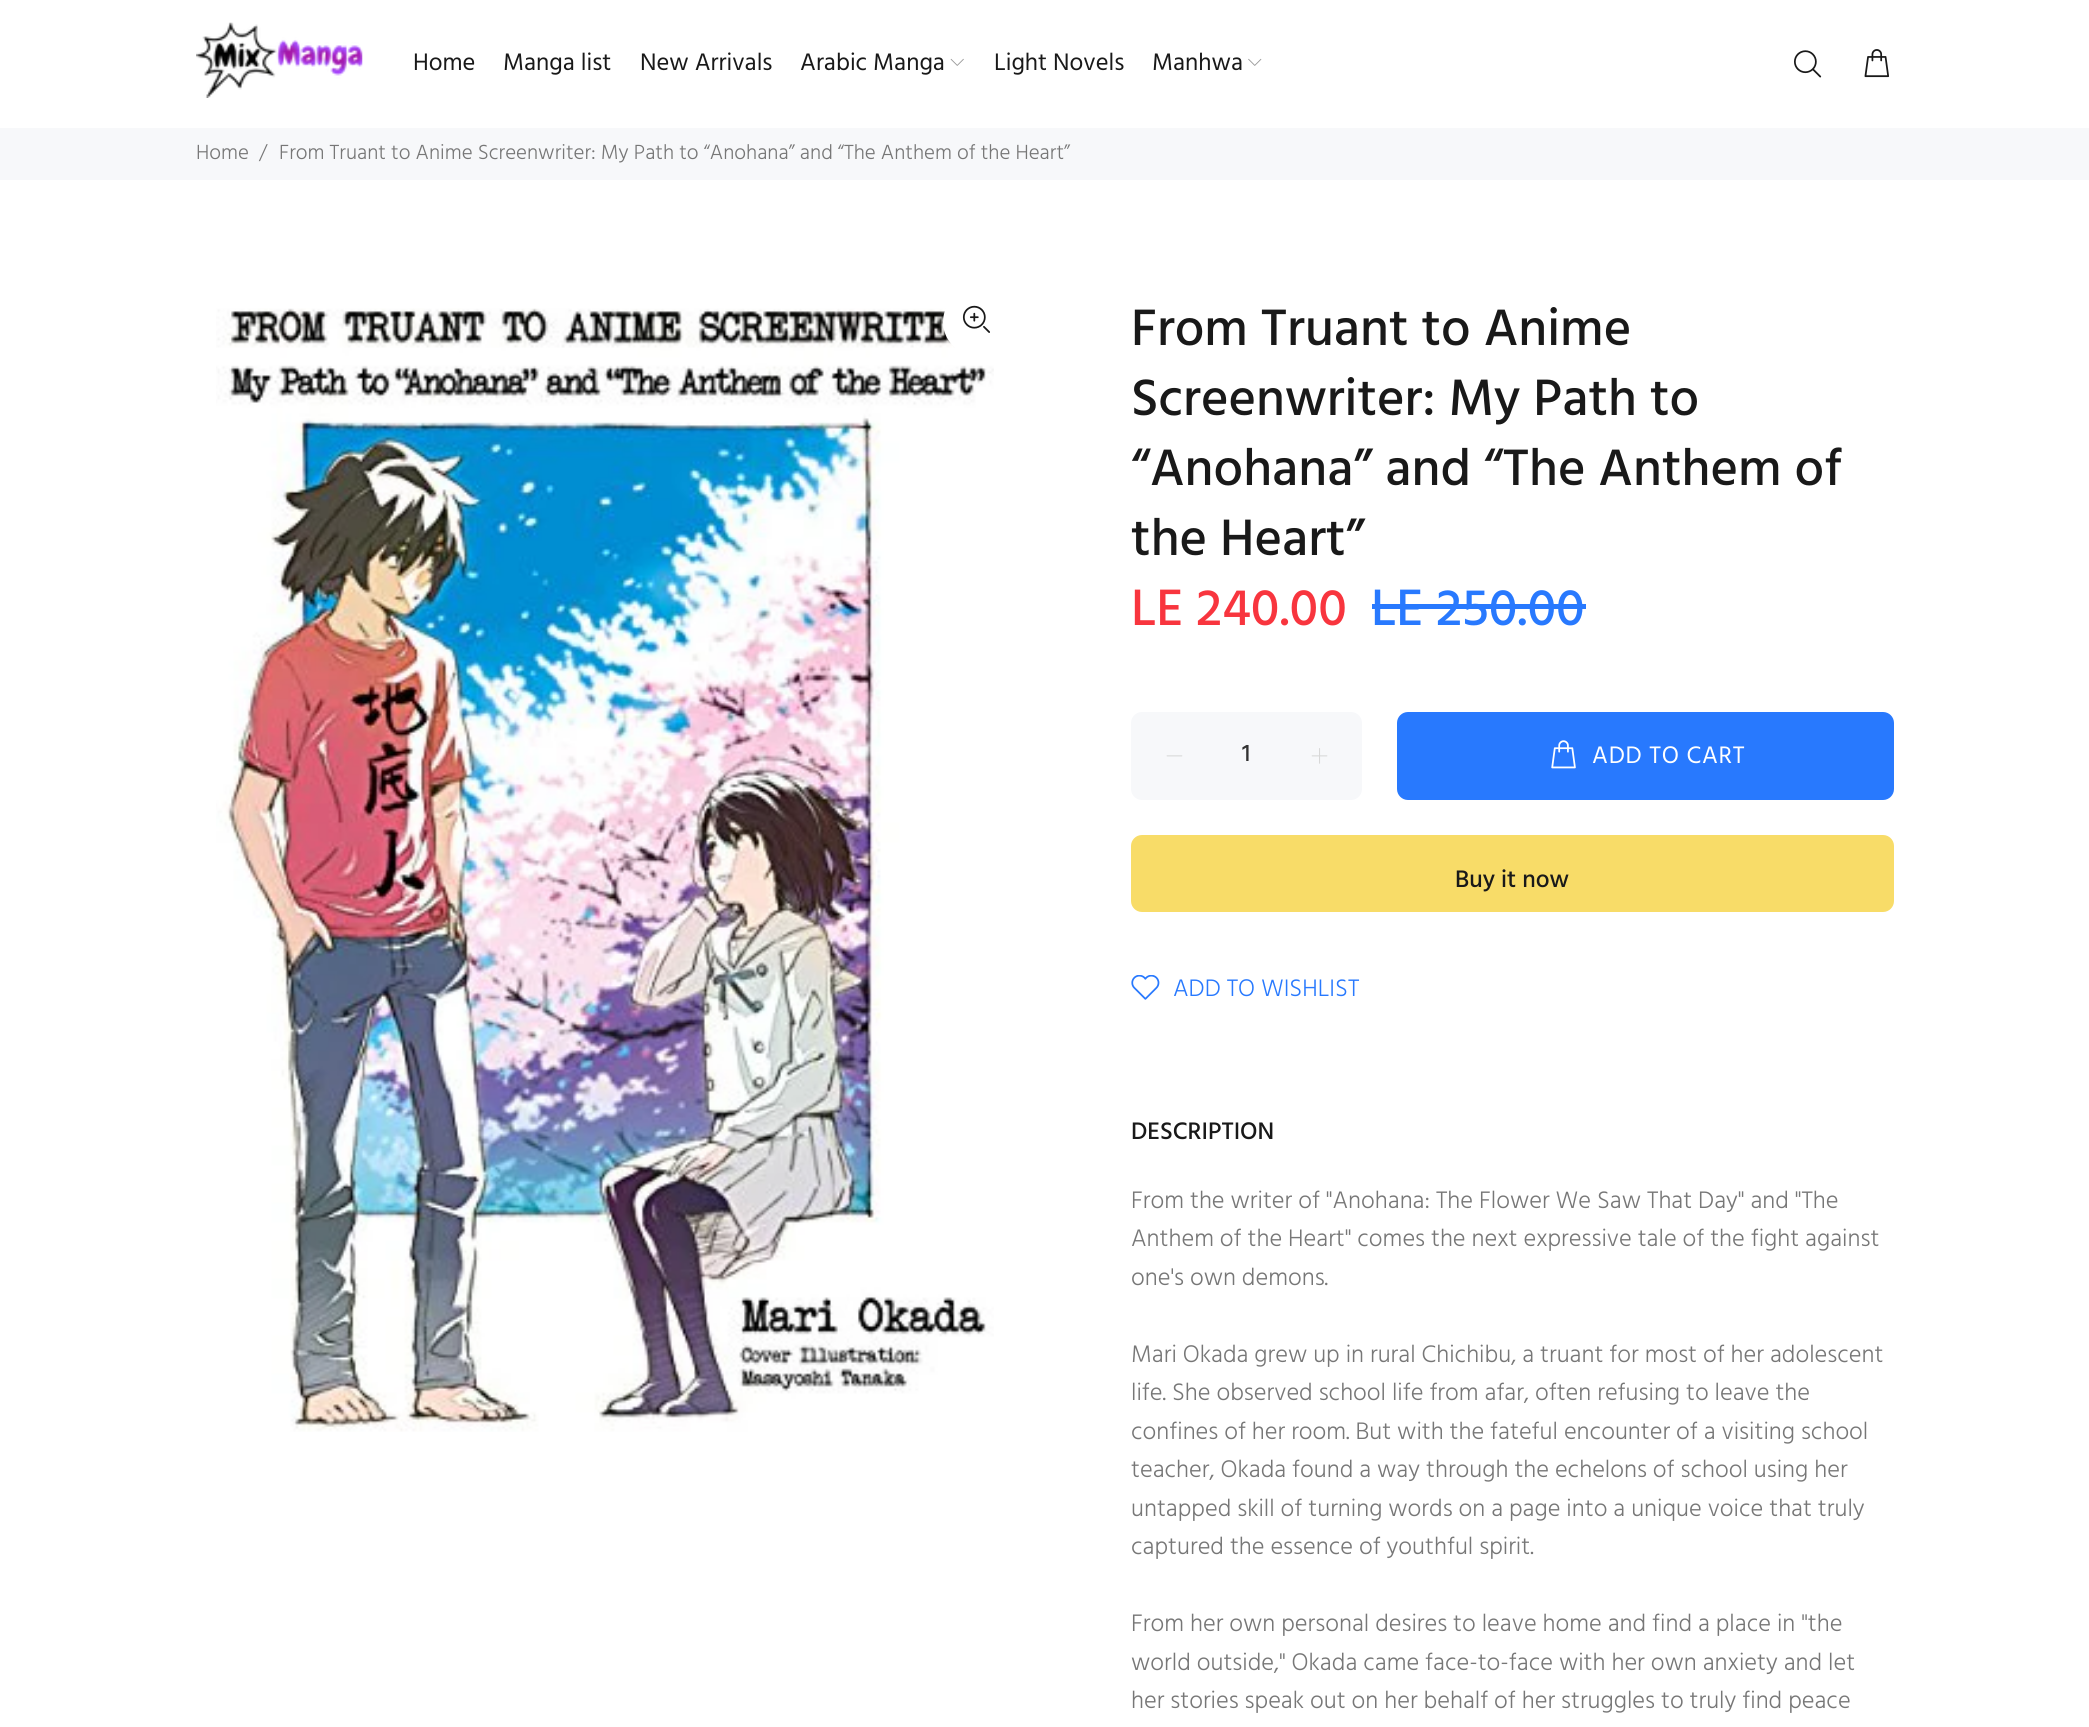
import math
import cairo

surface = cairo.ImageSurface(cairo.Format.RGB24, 2089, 1727)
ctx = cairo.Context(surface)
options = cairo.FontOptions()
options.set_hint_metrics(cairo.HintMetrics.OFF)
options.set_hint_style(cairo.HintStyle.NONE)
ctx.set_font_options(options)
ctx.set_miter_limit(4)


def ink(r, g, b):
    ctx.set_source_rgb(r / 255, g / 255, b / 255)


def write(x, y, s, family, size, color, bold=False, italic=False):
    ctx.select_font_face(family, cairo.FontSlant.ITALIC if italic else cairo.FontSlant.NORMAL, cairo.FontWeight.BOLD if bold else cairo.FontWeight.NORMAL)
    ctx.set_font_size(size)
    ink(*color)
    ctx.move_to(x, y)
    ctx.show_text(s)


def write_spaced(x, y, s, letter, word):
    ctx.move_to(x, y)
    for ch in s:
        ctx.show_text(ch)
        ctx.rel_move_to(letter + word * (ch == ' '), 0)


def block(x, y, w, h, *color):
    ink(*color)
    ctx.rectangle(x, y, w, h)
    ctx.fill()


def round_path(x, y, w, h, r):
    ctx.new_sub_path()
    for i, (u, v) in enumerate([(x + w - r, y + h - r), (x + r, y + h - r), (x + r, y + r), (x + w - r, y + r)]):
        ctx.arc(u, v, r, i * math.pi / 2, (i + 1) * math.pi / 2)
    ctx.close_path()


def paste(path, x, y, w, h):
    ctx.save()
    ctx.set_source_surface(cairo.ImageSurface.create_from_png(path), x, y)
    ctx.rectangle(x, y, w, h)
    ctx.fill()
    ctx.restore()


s1 = dict(family="Hind", size=24.5, color=(25, 25, 25))
s2 = dict(family="Hind Light", size=21, color=(119, 119, 119))
s3 = dict(family="Hind Medium", size=52.5, color=(25, 25, 25))
s4 = dict(family="Hind Medium", size=52.5, color=(248, 53, 62))
s5 = dict(family="Hind Medium", size=52.5, color=(40, 121, 254))
s6 = dict(family="Hind Medium", size=24.5, color=(51, 51, 51))
s7 = dict(family="Hind Medium", size=24.5, color=(25, 25, 25))
s8 = dict(family="Hind Light", size=24.5, color=(40, 121, 254))
s9 = dict(family="Hind Light", size=24.5, color=(119, 119, 119))

ink(255, 255, 255)
ctx.paint()
paste("pic1.png", 196, 22, 167, 76)
write(413, 70, "Home", **s1)
write(503, 70, "Manga list", **s1)
write(640, 70, "New Arrivals", **s1)
write(800, 70, "Arabic Manga", **s1)
paste("pic2.png", 950, 58, 14, 8)
write(994, 70, "Light Novels", **s1)
write(1152, 70, "Manhwa", **s1)
paste("pic3.png", 1248, 58, 14, 8)
paste("pic4.png", 1794, 50, 28, 28)
paste("pic5.png", 1864, 49, 26, 29)
block(0, 128, 2089, 52, 247, 248, 250)
write(196, 159, "Home", **s2)
write(259, 159, "/", **s2)
write(279, 159, "From Truant to Anime Screenwriter: My Path to “Anohana” and “The Anthem of the Heart”", **s2)
paste("pic7.png", 216, 308, 778, 1124)
ink(255, 255, 255)
round_path(943, 289, 67, 66, 33)
ctx.fill()
paste("pic6.png", 962, 305, 28, 28)
write(1131, 345, "From Truant to Anime", **s3)
write(1131, 415, "Screenwriter: My Path to", **s3)
write(1131, 485, "“Anohana” and “The Anthem of", **s3)
write(1131, 555, "the Heart”", **s3)
write(1131, 625, "LE 240.00", **s4)
write(1371, 625, "LE 250.00", **s5)
block(1372, 604, 214, 5, 40, 121, 254)
ink(247, 248, 250)
round_path(1131, 712, 231, 88, 11)
ctx.fill()
paste("pic8.png", 1166, 755, 17, 2)
write(1242, 761, "1", **s6)
paste("pic9.png", 1311, 748, 17, 16)
ink(40, 121, 254)
round_path(1397, 712, 497, 88, 11)
ctx.fill()
paste("pic10.png", 1551, 740, 25, 29)
ctx.select_font_face("Hind")
ink(255, 255, 255)
write_spaced(1592, 763, "ADD TO CART", 0.75, 0)
ink(248, 220, 104)
round_path(1131, 835, 763, 77, 11)
ctx.fill()
write(1455, 887, "Buy it now", **s7)
paste("pic11.png", 1131, 975, 29, 25)
write(1173, 996, "ADD TO WISHLIST", **s8)
write(1131, 1139, "DESCRIPTION", **s7)
write(1131, 1208, "From the writer of \"Anohana: The Flower We Saw That Day\" and \"The", **s9)
write(1131, 1246, "Anthem of the Heart\" comes the next expressive tale of the fight against", **s9)
write(1131, 1285, "one's own demons.", **s9)
write(1131, 1362, "Mari Okada grew up in rural Chichibu, a truant for most of her adolescent", **s9)
write(1131, 1400, "life. She observed school life from afar, often refusing to leave the", **s9)
write(1131, 1439, "confines of her room. But with the fateful encounter of a visiting school", **s9)
write(1131, 1477, "teacher, Okada found a way through the echelons of school using her", **s9)
write(1131, 1516, "untapped skill of turning words on a page into a unique voice that truly", **s9)
write(1131, 1554, "captured the essence of youthful spirit.", **s9)
write(1131, 1631, "From her own personal desires to leave home and find a place in \"the", **s9)
write(1131, 1670, "world outside,\" Okada came face-to-face with her own anxiety and let", **s9)
write(1131, 1708, "her stories speak out on her behalf of her struggles to truly find peace", **s9)
surface.write_to_png("screenshot.png")
